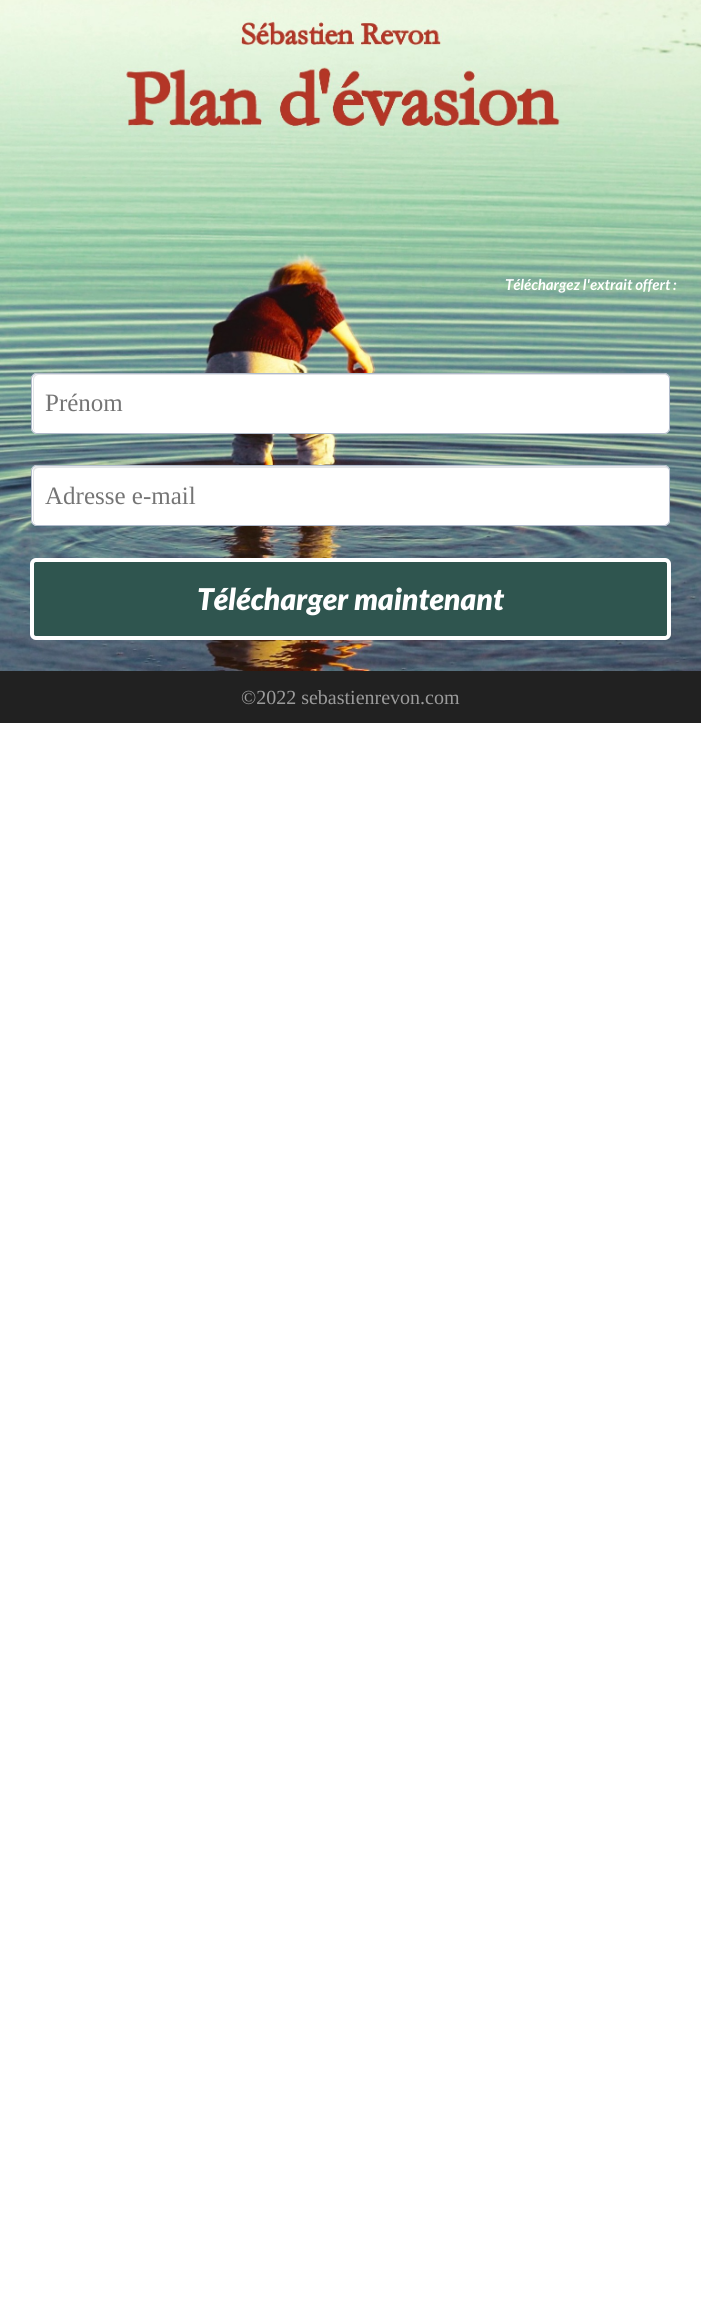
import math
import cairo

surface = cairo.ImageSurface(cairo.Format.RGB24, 701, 2299)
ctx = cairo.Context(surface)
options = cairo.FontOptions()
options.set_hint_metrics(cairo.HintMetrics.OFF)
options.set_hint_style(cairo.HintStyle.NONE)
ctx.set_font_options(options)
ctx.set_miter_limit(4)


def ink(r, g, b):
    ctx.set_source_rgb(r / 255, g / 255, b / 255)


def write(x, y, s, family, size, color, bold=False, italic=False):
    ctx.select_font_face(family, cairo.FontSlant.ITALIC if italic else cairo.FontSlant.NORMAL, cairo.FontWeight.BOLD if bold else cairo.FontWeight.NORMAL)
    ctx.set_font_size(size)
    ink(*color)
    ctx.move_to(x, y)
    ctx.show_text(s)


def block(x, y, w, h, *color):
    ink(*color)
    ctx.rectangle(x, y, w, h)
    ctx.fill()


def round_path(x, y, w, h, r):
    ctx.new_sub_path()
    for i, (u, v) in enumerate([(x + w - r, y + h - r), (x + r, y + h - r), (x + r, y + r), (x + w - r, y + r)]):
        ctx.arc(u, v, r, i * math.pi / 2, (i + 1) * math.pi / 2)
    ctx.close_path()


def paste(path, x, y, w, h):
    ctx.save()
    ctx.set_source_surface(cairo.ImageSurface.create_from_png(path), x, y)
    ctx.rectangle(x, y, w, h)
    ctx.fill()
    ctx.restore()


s1 = dict(family="Lato", size=15, color=(255, 255, 255), bold=True, italic=True)
s2 = dict(family="Liberation Serif", size=25, color=(117, 117, 117))
s3 = dict(family="Lato Black", size=30, color=(255, 255, 255), italic=True)
s4 = dict(family="Liberation Serif", size=20, color=(155, 155, 155))

ink(255, 255, 255)
ctx.paint()
paste("pic1.png", 0, 0, 701, 671)
write(505, 290, "Téléchargez l'extrait offert :", **s1)
round_path(31, 373, 639, 61, 6)
ctx.fill()
ink(226, 228, 231)
ctx.new_path()
ctx.move_to(39, 375)
ctx.line_to(665, 375)
ctx.line_to(668, 376)
ctx.curve_to(667, 375, 665, 374, 664, 374)
ctx.line_to(38, 374)
ctx.curve_to(35, 374, 33, 376, 33, 379)
ctx.line_to(33, 428)
ctx.curve_to(33, 429, 34, 431, 35, 432)
ctx.line_to(34, 429)
ctx.line_to(34, 380)
ctx.curve_to(34, 377, 36, 375, 39, 375)
ctx.close_path()
ctx.fill()
round_path(31.5, 373.5, 638, 60, 5.5)
ink(176, 186, 202)
ctx.set_line_width(1)
ctx.stroke()
write(45, 411, "Prénom", **s2)
ink(255, 255, 255)
round_path(31, 465, 639, 61, 6)
ctx.fill()
ink(226, 228, 231)
ctx.new_path()
ctx.move_to(39, 468)
ctx.line_to(665, 468)
ctx.curve_to(667, 468, 668, 469, 669, 469)
ctx.curve_to(668, 467, 666, 466, 664, 466)
ctx.line_to(38, 466)
ctx.curve_to(35, 466, 33, 468, 33, 471)
ctx.line_to(33, 520)
ctx.curve_to(33, 521, 34, 523, 35, 524)
ctx.line_to(34, 521)
ctx.line_to(34, 472)
ctx.curve_to(34, 470, 36, 468, 39, 468)
ctx.close_path()
ctx.fill()
round_path(31.5, 465.5, 638, 60, 5.5)
ink(176, 186, 202)
ctx.stroke()
write(45, 504, "Adresse e-mail", **s2)
ink(47, 85, 79)
round_path(32, 560, 637, 78, 4)
ctx.fill_preserve()
ink(255, 255, 255)
ctx.set_line_width(4)
ctx.stroke()
write(197, 610, "Télécharger maintenant", **s3)
block(0, 671, 701, 52, 33, 33, 33)
write(241, 704, "©2022 sebastienrevon.com", **s4)
surface.write_to_png("screenshot.png")
